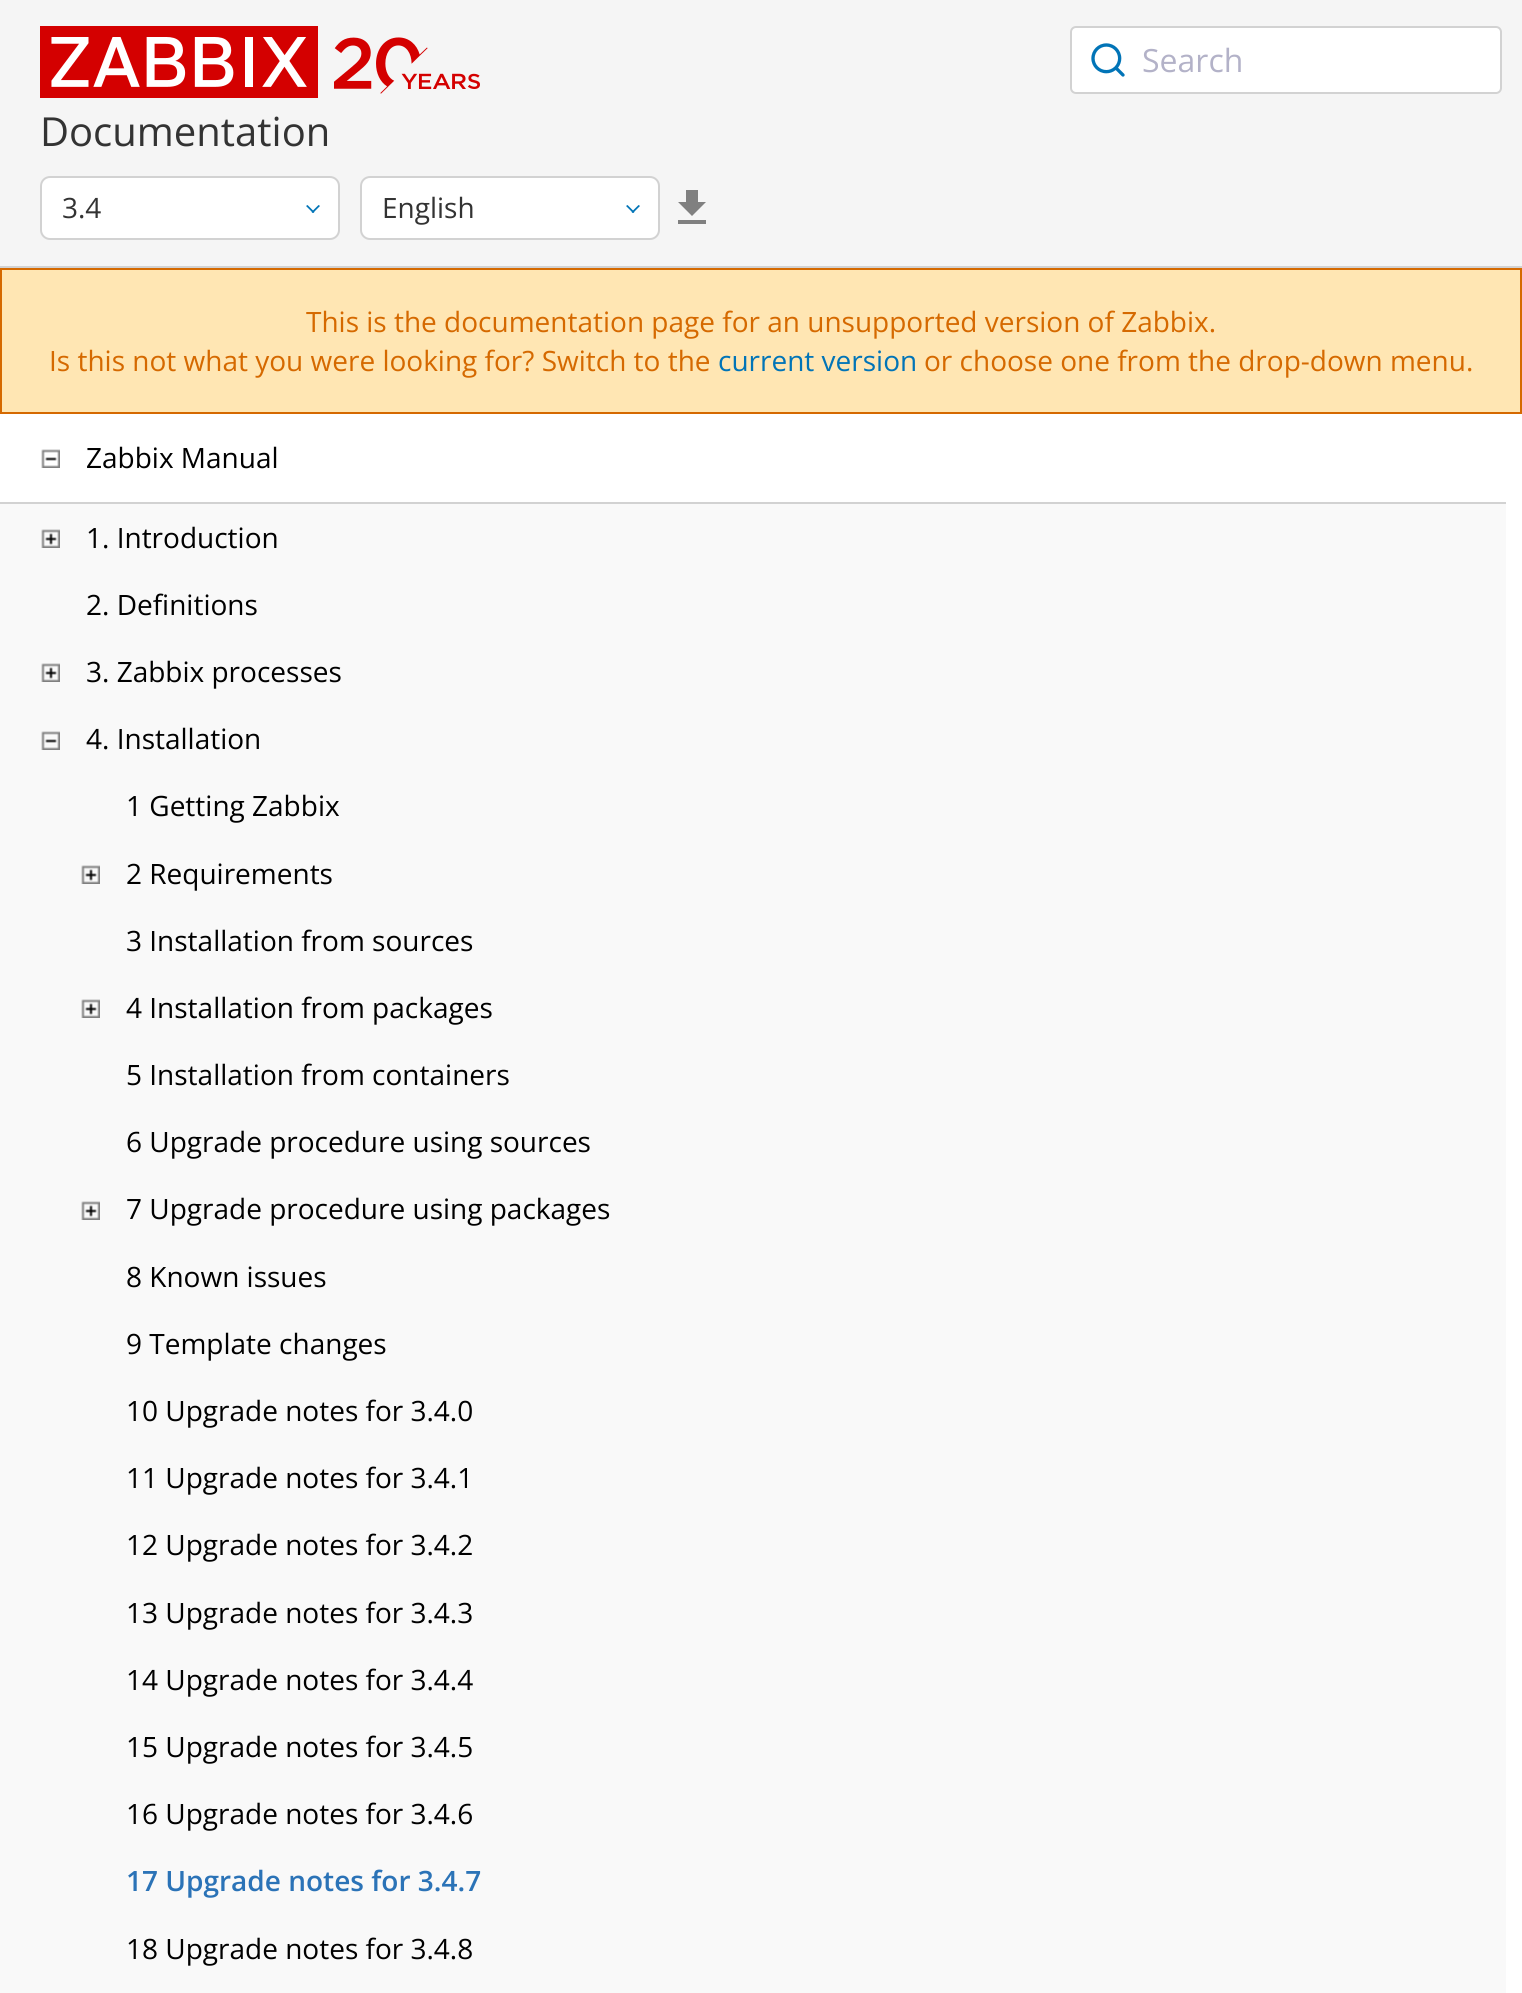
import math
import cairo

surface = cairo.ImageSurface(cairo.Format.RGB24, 1522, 1993)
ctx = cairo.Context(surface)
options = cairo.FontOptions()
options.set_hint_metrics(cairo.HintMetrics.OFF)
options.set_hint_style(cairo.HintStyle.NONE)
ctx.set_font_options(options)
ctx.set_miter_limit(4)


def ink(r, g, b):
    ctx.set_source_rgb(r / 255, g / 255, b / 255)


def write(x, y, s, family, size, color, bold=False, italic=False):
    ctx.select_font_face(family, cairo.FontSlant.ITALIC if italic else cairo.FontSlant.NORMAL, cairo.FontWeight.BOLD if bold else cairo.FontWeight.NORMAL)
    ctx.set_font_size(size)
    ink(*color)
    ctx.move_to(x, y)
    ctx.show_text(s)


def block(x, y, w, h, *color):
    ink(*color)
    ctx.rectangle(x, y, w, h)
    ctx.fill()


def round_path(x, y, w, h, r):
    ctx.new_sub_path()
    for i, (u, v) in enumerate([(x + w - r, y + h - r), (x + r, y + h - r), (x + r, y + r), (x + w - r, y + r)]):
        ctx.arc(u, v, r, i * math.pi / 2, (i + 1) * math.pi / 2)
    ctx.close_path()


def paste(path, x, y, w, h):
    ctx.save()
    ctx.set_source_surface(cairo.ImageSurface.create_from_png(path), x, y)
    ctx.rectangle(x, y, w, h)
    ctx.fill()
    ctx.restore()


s1 = dict(family="Open Sans", size=32, color=(179, 178, 200))
s2 = dict(family="Open Sans", size=40, color=(51, 51, 51))
s3 = dict(family="Open Sans", size=28, color=(51, 51, 51))
s4 = dict(family="Open Sans", size=28, color=(213, 105, 0))
s5 = dict(family="Open Sans", size=28, color=(1, 116, 183))
s6 = dict(family="Open Sans", size=28, color=(0, 0, 0))
s7 = dict(family="Open Sans SemiBold", size=28, color=(43, 115, 183))

ink(255, 255, 255)
ctx.paint()
block(0, 0, 1522, 266, 245, 245, 245)
block(0, 266, 1522, 2, 210, 210, 210)
ink(255, 255, 255)
round_path(1071, 27, 430, 66, 5)
ctx.fill_preserve()
ink(210, 210, 210)
ctx.stroke()
paste("pic1.png", 1091, 43, 34, 34)
write(1142, 72, "Search", **s1)
paste("pic2.png", 40, 26, 440, 72)
write(40, 146, "Documentation", **s2)
ink(255, 255, 255)
round_path(41, 177, 298, 62, 9)
ctx.fill_preserve()
ink(210, 210, 210)
ctx.stroke()
write(62, 218, "3.4", **s3)
ink(1, 116, 183)
ctx.new_path()
ctx.move_to(320, 206)
ctx.line_to(313, 213)
ctx.line_to(311.5, 212)
ctx.line_to(318.5, 205)
ctx.close_path()
ctx.fill()
ctx.new_path()
ctx.move_to(314.5, 212)
ctx.line_to(313, 213)
ctx.line_to(306, 206)
ctx.line_to(307.5, 205)
ctx.close_path()
ctx.fill()
ink(255, 255, 255)
round_path(361, 177, 298, 62, 9)
ctx.fill_preserve()
ink(210, 210, 210)
ctx.stroke()
write(382, 218, "English", **s3)
ink(1, 116, 183)
ctx.new_path()
ctx.move_to(640, 206)
ctx.line_to(633, 213)
ctx.line_to(631.5, 212)
ctx.line_to(638.5, 205)
ctx.close_path()
ctx.fill()
ctx.new_path()
ctx.move_to(634.5, 212)
ctx.line_to(633, 213)
ctx.line_to(626, 206)
ctx.line_to(627.5, 205)
ctx.close_path()
ctx.fill()
ink(128, 128, 128)
ctx.new_path()
ctx.move_to(706, 202)
ctx.line_to(698, 202)
ctx.line_to(698, 190)
ctx.line_to(686, 190)
ctx.line_to(686, 202)
ctx.line_to(678, 202)
ctx.line_to(692, 216)
ctx.close_path()
ctx.move_to(678, 220)
ctx.line_to(678, 224)
ctx.line_to(706, 224)
ctx.line_to(706, 220)
ctx.close_path()
ctx.fill()
ink(255, 230, 179)
ctx.rectangle(1, 269, 1520, 144)
ctx.fill_preserve()
ink(213, 105, 0)
ctx.stroke()
write(306, 332, "This is the documentation page for an unsupported version of Zabbix.", **s4)
write(49, 371, "Is this not what you were looking for? Switch to the", **s4)
write(718, 371, "current version", **s5)
write(924, 371, "or choose one from the drop-down menu.", **s4)
block(0, 502, 1506, 2, 210, 210, 210)
paste("pic3.png", 41, 449, 19, 19)
write(86, 468, "Zabbix Manual", **s6)
block(0, 504, 1506, 1489, 249, 249, 249)
paste("pic4.png", 41, 529, 19, 19)
write(86, 548, "1. Introduction", **s6)
write(86, 615, "2. Definitions", **s6)
paste("pic4.png", 41, 663, 19, 19)
write(86, 682, "3. Zabbix processes", **s6)
paste("pic5.png", 41, 731, 19, 19)
write(86, 749, "4. Installation", **s6)
write(126, 816, "1 Getting Zabbix", **s6)
paste("pic4.png", 81, 865, 19, 19)
write(126, 884, "2 Requirements", **s6)
write(126, 951, "3 Installation from sources", **s6)
paste("pic4.png", 81, 999, 19, 19)
write(126, 1018, "4 Installation from packages", **s6)
write(126, 1085, "5 Installation from containers", **s6)
write(126, 1152, "6 Upgrade procedure using sources", **s6)
paste("pic4.png", 81, 1201, 19, 19)
write(126, 1219, "7 Upgrade procedure using packages", **s6)
write(126, 1287, "8 Known issues", **s6)
write(126, 1354, "9 Template changes", **s6)
write(126, 1421, "10 Upgrade notes for 3.4.0", **s6)
write(126, 1488, "11 Upgrade notes for 3.4.1", **s6)
write(126, 1555, "12 Upgrade notes for 3.4.2", **s6)
write(126, 1623, "13 Upgrade notes for 3.4.3", **s6)
write(126, 1690, "14 Upgrade notes for 3.4.4", **s6)
write(126, 1757, "15 Upgrade notes for 3.4.5", **s6)
write(126, 1824, "16 Upgrade notes for 3.4.6", **s6)
write(126, 1891, "17 Upgrade notes for 3.4.7", **s7)
write(126, 1959, "18 Upgrade notes for 3.4.8", **s6)
surface.write_to_png("screenshot.png")
